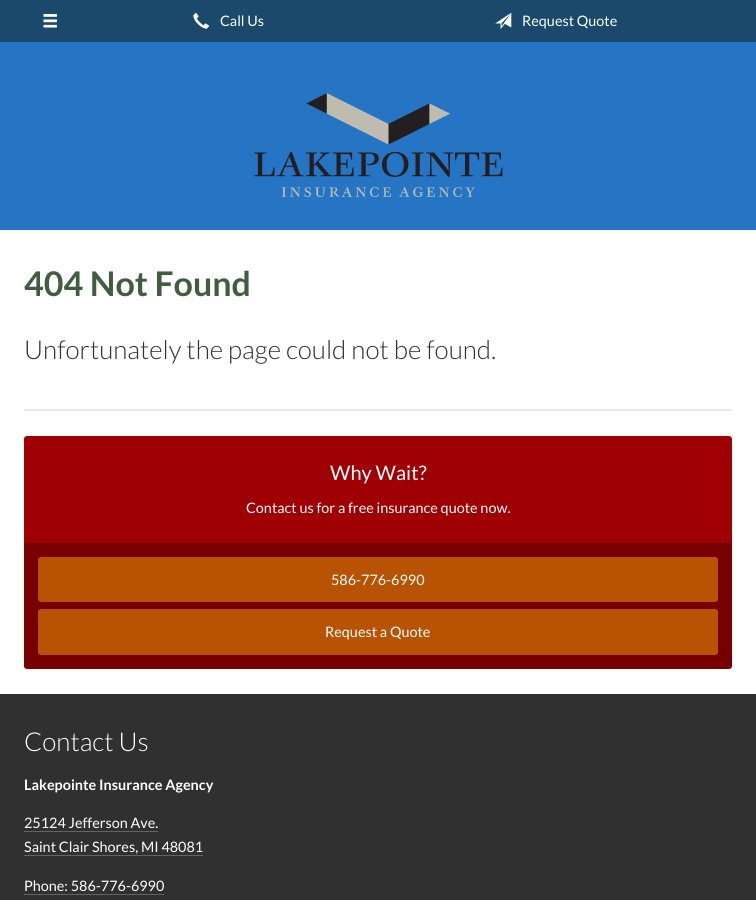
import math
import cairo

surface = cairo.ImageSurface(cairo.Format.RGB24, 756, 900)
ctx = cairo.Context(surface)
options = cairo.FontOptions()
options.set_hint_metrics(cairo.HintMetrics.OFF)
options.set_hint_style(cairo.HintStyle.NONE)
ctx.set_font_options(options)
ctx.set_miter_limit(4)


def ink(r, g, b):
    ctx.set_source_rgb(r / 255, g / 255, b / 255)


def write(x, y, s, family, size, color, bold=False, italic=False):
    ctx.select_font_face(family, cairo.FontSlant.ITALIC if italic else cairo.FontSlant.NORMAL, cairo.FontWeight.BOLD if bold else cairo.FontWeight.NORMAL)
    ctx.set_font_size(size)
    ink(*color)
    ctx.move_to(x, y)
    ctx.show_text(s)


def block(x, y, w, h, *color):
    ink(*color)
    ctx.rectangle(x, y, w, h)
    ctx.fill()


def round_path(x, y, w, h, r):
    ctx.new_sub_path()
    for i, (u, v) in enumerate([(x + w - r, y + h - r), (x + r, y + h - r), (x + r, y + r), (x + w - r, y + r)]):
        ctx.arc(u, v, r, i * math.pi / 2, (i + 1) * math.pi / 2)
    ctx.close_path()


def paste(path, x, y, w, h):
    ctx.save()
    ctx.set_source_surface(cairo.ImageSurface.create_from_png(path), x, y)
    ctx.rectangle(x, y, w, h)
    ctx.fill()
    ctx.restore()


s1 = dict(family="Lato", size=14.4, color=(255, 255, 255))
s2 = dict(family="Lato", size=34, color=(64, 94, 63), bold=True)
s3 = dict(family="Lato Light", size=26, color=(48, 48, 48))
s4 = dict(family="Lato", size=20, color=(255, 255, 255))
s5 = dict(family="Lato Light", size=26, color=(255, 255, 255))
s6 = dict(family="Lato", size=14.4, color=(255, 255, 255), bold=True)

ink(27, 73, 107)
ctx.paint()
paste("pic1.png", 43, 14, 14, 14)
paste("pic2.png", 193, 13, 16, 16)
write(220, 26, "Call Us", **s1)
paste("pic3.png", 495, 12, 17, 17)
write(522, 26, "Request Quote", **s1)
block(0, 42, 756, 188, 38, 117, 197)
paste("pic4.png", 254, 93, 249, 104)
block(0, 230, 756, 464, 255, 255, 255)
write(24, 296, "404 Not Found", **s2)
write(24, 359, "Unfortunately the page could not be found.", **s3)
block(24, 409, 708, 2, 235, 234, 234)
ink(159, 0, 3)
round_path(24, 436, 708, 233, 3)
ctx.fill()
write(330, 480, "Why Wait?", **s4)
write(246, 513, "Contact us for a free insurance quote now.", **s1)
ctx.set_source_rgba(0, 0, 0, 0.25)
ctx.new_path()
ctx.move_to(24, 543)
ctx.line_to(732, 543)
ctx.line_to(732, 666)
ctx.curve_to(732, 667.5, 730.5, 669, 729, 669)
ctx.line_to(27, 669)
ctx.curve_to(25.5, 669, 24, 667.5, 24, 666)
ctx.close_path()
ctx.fill()
ink(183, 83, 3)
round_path(38, 557, 680, 45, 3)
ctx.fill()
write(331, 585, "586-776-6990", **s1)
ink(183, 83, 3)
round_path(38, 609, 680, 46, 3)
ctx.fill()
write(325, 637, "Request a Quote", **s1)
block(0, 694, 756, 206, 48, 48, 48)
write(24, 751, "Contact Us", **s5)
write(24, 790, "Lakepointe Insurance Agency", **s6)
write(24, 828, "25124 Jefferson Ave.", **s1)
block(24, 831, 134, 1, 100, 100, 100)
write(24, 852, "Saint Clair Shores, MI 48081", **s1)
block(24, 855, 179, 1, 100, 100, 100)
write(24, 891, "Phone: 586-776-6990", **s1)
block(24, 894, 140, 1, 100, 100, 100)
surface.write_to_png("screenshot.png")
